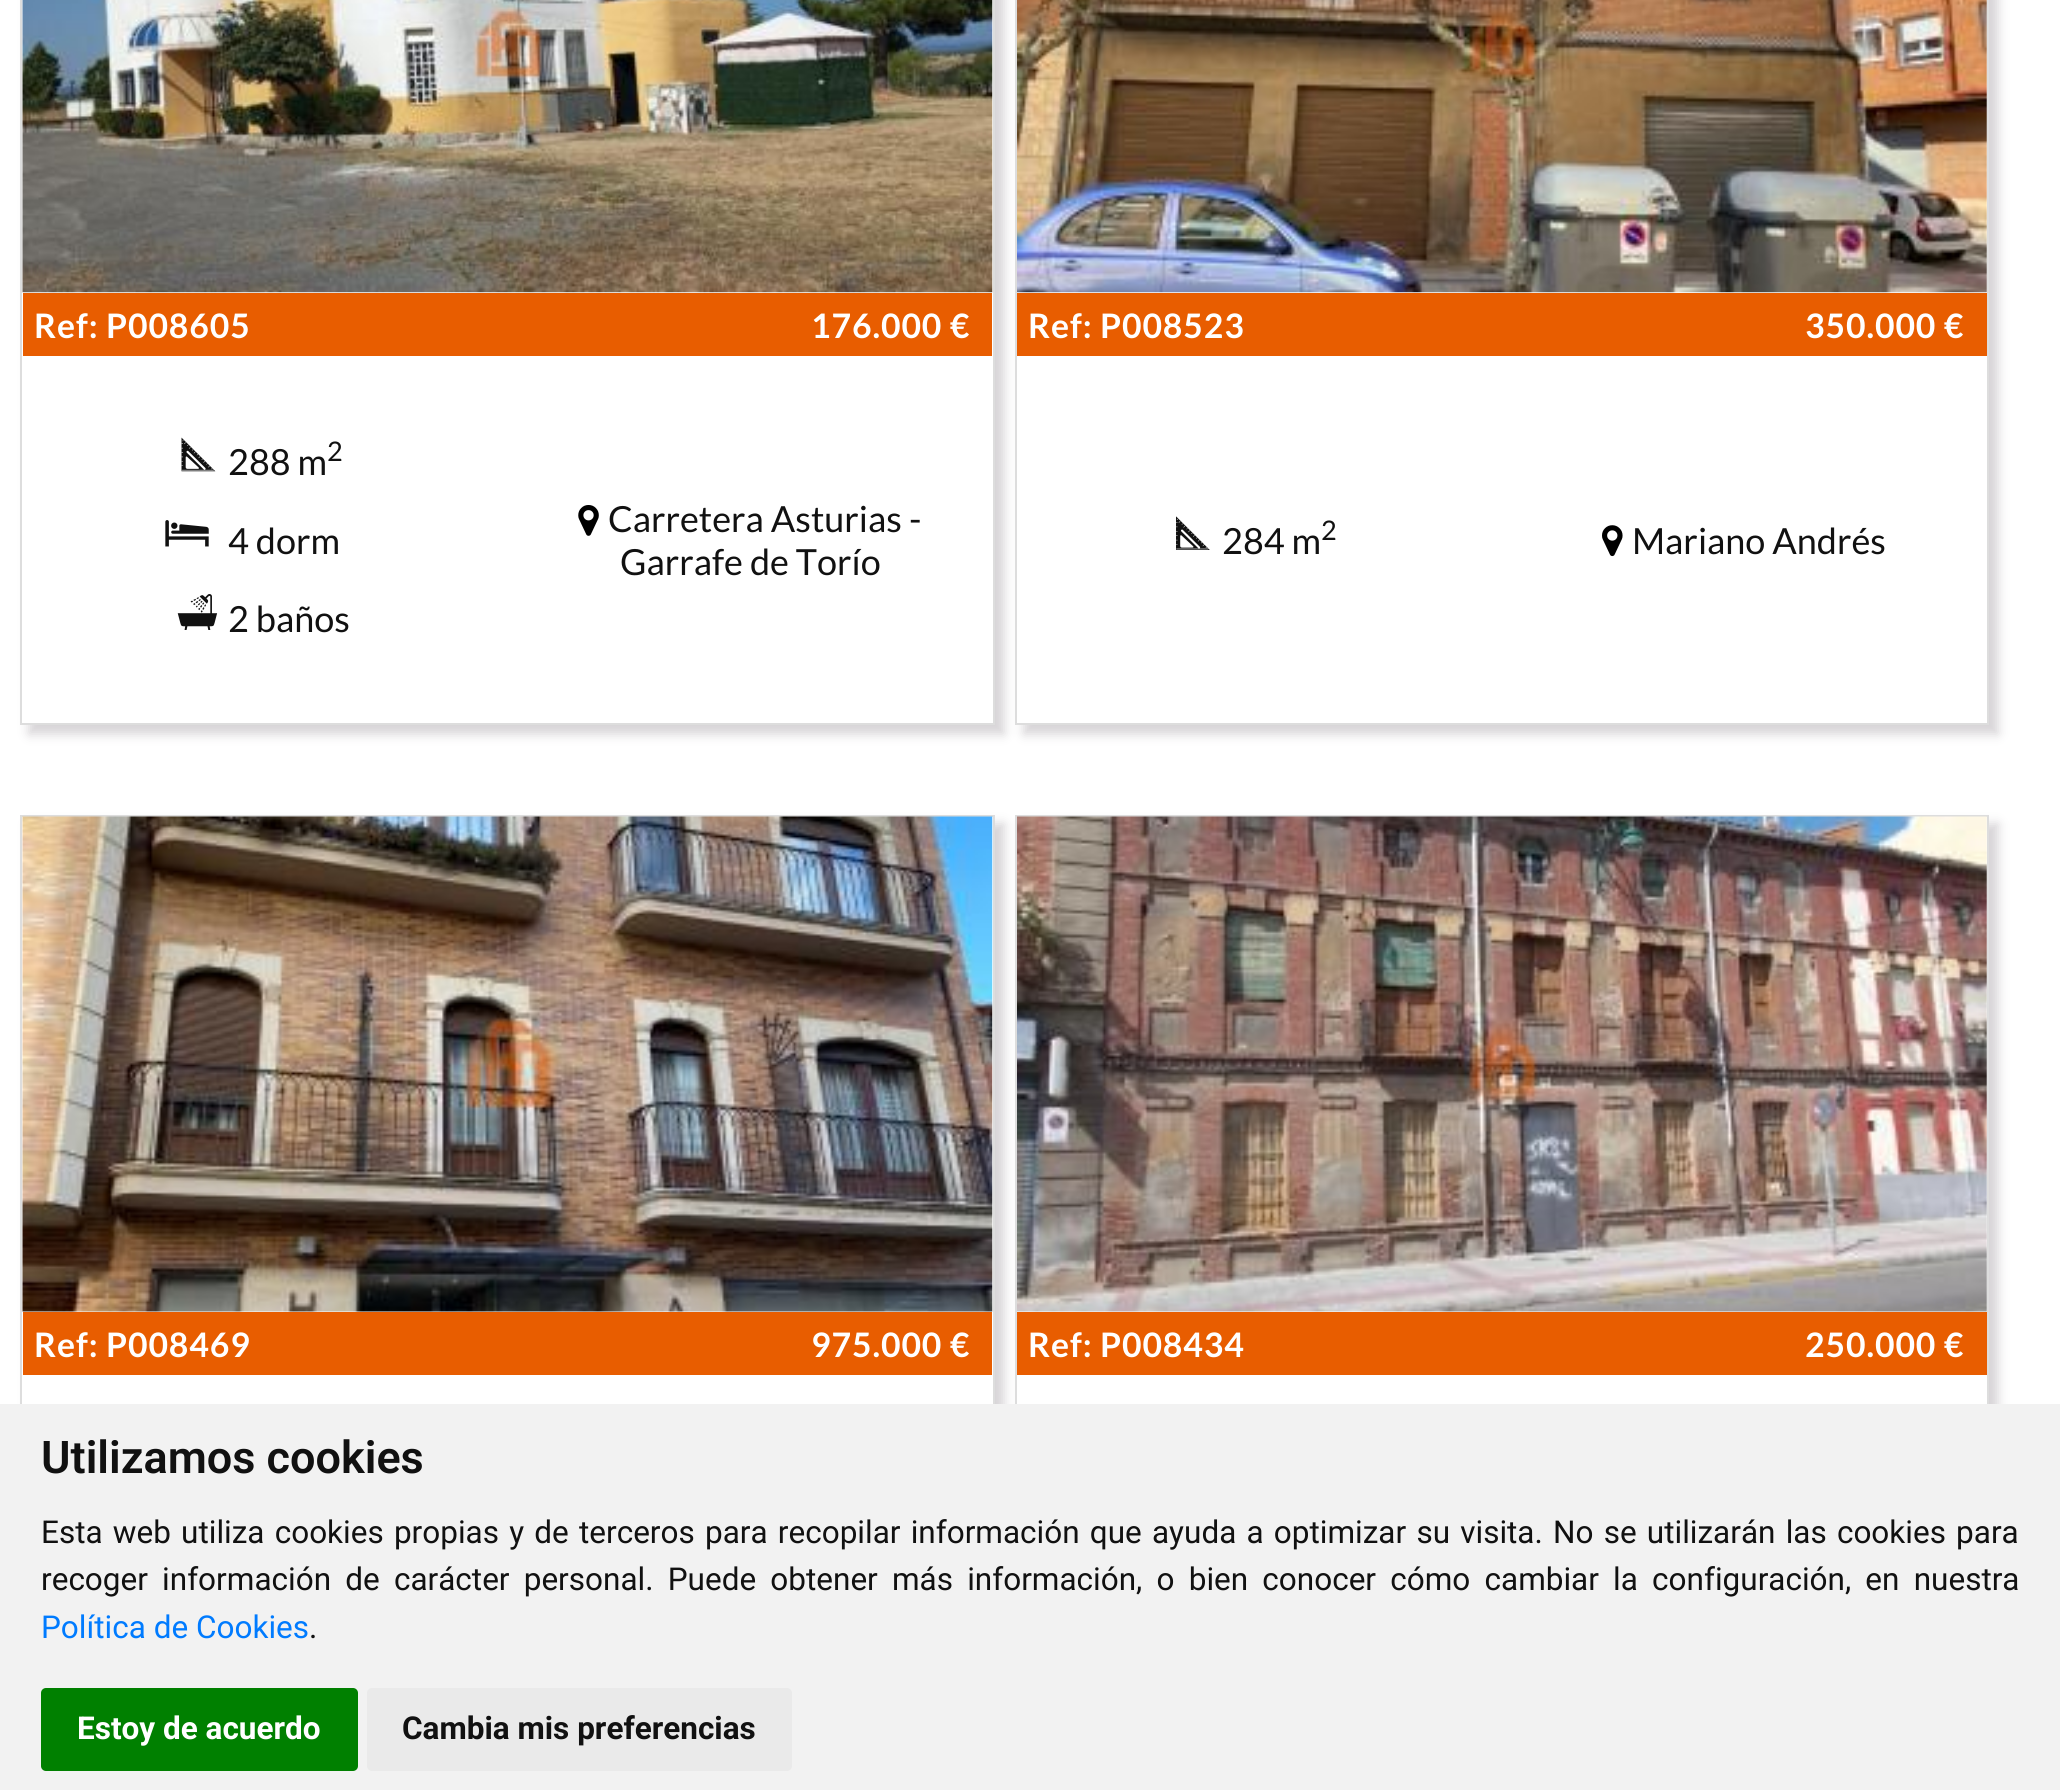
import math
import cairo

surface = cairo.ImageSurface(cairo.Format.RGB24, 2060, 1790)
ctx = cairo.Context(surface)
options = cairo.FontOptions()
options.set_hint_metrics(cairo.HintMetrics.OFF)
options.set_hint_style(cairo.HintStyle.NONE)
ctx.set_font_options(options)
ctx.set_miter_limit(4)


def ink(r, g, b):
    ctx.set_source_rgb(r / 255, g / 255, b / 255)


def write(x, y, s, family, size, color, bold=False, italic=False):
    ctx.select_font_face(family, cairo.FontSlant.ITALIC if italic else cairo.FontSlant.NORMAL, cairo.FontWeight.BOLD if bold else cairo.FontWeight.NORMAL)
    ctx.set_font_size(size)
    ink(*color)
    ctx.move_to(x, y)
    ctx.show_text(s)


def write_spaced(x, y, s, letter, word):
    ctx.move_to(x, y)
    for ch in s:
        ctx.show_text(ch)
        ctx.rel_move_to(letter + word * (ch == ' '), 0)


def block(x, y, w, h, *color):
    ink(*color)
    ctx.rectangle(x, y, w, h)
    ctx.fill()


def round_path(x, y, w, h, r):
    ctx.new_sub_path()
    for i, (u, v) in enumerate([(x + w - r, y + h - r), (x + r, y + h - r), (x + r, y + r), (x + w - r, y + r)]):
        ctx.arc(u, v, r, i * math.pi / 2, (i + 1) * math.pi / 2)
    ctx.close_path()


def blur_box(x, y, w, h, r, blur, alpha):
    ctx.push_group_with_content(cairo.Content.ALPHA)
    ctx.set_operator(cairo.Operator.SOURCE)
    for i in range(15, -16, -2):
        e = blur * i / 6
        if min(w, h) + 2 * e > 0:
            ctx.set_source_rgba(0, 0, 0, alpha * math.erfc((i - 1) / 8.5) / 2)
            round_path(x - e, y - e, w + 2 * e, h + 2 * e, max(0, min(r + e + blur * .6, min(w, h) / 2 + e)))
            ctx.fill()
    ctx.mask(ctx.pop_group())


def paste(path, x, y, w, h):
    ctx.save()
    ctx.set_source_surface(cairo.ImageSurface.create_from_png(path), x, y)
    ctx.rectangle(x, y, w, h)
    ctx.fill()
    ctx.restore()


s1 = dict(family="Lato", size=36, color=(17, 17, 17))
s2 = dict(family="Lato", size=27, color=(17, 17, 17))
s3 = dict(family="Roboto SemiBold", size=45, color=(17, 17, 17))
s4 = dict(family="Roboto", size=31.5, color=(0, 123, 255))
s5 = dict(family="Roboto", size=31.5, color=(17, 17, 17))
s6 = dict(family="Roboto", size=31.5, color=(255, 255, 255), bold=True)
s7 = dict(family="Roboto", size=31.5, color=(17, 17, 17), bold=True)

ink(255, 255, 255)
ctx.paint()
ink(214, 211, 214)
blur_box(29, -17, 975, 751, 0, 5.5, 1)
ink(255, 255, 255)
ctx.rectangle(21, -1, 973, 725)
ctx.fill_preserve()
ink(221, 221, 221)
ctx.stroke()
paste("pic1.png", 22, 0, 971, 293)
block(23, 293, 969, 63, 232, 93, 0)
ctx.select_font_face("Lato", cairo.FontSlant.NORMAL, cairo.FontWeight.BOLD)
ctx.set_font_size(33.75)
ink(255, 255, 255)
write_spaced(34, 338, "Ref: P008605", 0.9, 0)
write_spaced(811, 338, "176.000 €", 0.9, 0)
paste("pic2.png", 181, 437, 35, 35)
write(228, 475, "288 m", **s1)
write(327, 461, "2", **s2)
paste("pic3.png", 165, 520, 44, 27)
write(228, 554, "4 dorm", **s1)
paste("pic4.png", 177, 594, 41, 36)
write(228, 632, "2 baños", **s1)
paste("pic5.png", 578, 505, 21, 31)
write(608, 532, "Carretera Asturias -", **s1)
write(620, 575, "Garrafe de Torío", **s1)
ink(214, 211, 214)
blur_box(1024, -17, 974, 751, 0, 5.5, 1)
block(1017, 356, 970, 367, 255, 255, 255)
ctx.rectangle(1016, -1, 972, 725)
ink(221, 221, 221)
ctx.stroke()
block(1017, 0, 970, 293, 255, 255, 255)
paste("pic6.png", 1017, 0, 970, 293)
block(1017, 293, 970, 63, 232, 93, 0)
ctx.select_font_face("Lato", cairo.FontSlant.NORMAL, cairo.FontWeight.BOLD)
ctx.set_font_size(33.75)
ink(255, 255, 255)
write_spaced(1028, 338, "Ref: P008523", 0.9, 0)
write_spaced(1805, 338, "350.000 €", 0.9, 0)
paste("pic7.png", 1176, 516, 34, 34)
write(1222, 554, "284 m", **s1)
write(1321, 540, "2", **s2)
paste("pic8.png", 1602, 525, 21, 32)
write(1632, 554, "Mariano Andrés", **s1)
ink(214, 211, 214)
blur_box(29, 824, 975, 929, 0, 5.5, 1)
block(22, 817, 971, 587, 255, 255, 255)
ctx.rectangle(21, 816, 973, 927)
ink(221, 221, 221)
ctx.stroke()
paste("pic9.png", 22, 816, 971, 496)
block(23, 1312, 969, 63, 232, 93, 0)
ctx.select_font_face("Lato", cairo.FontSlant.NORMAL, cairo.FontWeight.BOLD)
ctx.set_font_size(33.75)
ink(255, 255, 255)
write_spaced(34, 1357, "Ref: P008469", 0.9, 0)
write_spaced(811, 1357, "975.000 €", 0.9, 0)
ink(214, 211, 214)
blur_box(1024, 824, 974, 929, 0, 5.5, 1)
block(1017, 1375, 970, 29, 255, 255, 255)
ctx.rectangle(1016, 816, 972, 927)
ink(221, 221, 221)
ctx.stroke()
block(1017, 817, 970, 495, 255, 255, 255)
paste("pic10.png", 1017, 816, 970, 496)
block(1017, 1312, 970, 63, 232, 93, 0)
ink(255, 255, 255)
write_spaced(1028, 1357, "Ref: P008434", 0.9, 0)
write_spaced(1805, 1357, "250.000 €", 0.9, 0)
block(0, 1404, 2060, 386, 242, 242, 242)
write(41, 1473, "Utilizamos cookies", **s3)
ctx.select_font_face("Roboto")
ctx.set_font_size(31.5)
write_spaced(41, 1543, "Esta web utiliza cookies propias y de terceros para recopilar información que ayuda a optimizar su visita. No se utilizarán las cookies para", 0, 2.4)
write_spaced(41, 1590, "recoger información de carácter personal. Puede obtener más información, o bien conocer cómo cambiar la configuración, en nuestra", 0, 6.4)
write(41, 1638, "Política de Cookies", **s4)
write(309, 1638, ".", **s5)
ink(0, 128, 0)
round_path(41, 1688, 317, 83, 5)
ctx.fill()
write(77, 1739, "Estoy de acuerdo", **s6)
ink(234, 234, 234)
round_path(367, 1688, 425, 83, 5)
ctx.fill()
write(402, 1739, "Cambia mis preferencias", **s7)
surface.write_to_png("screenshot.png")
